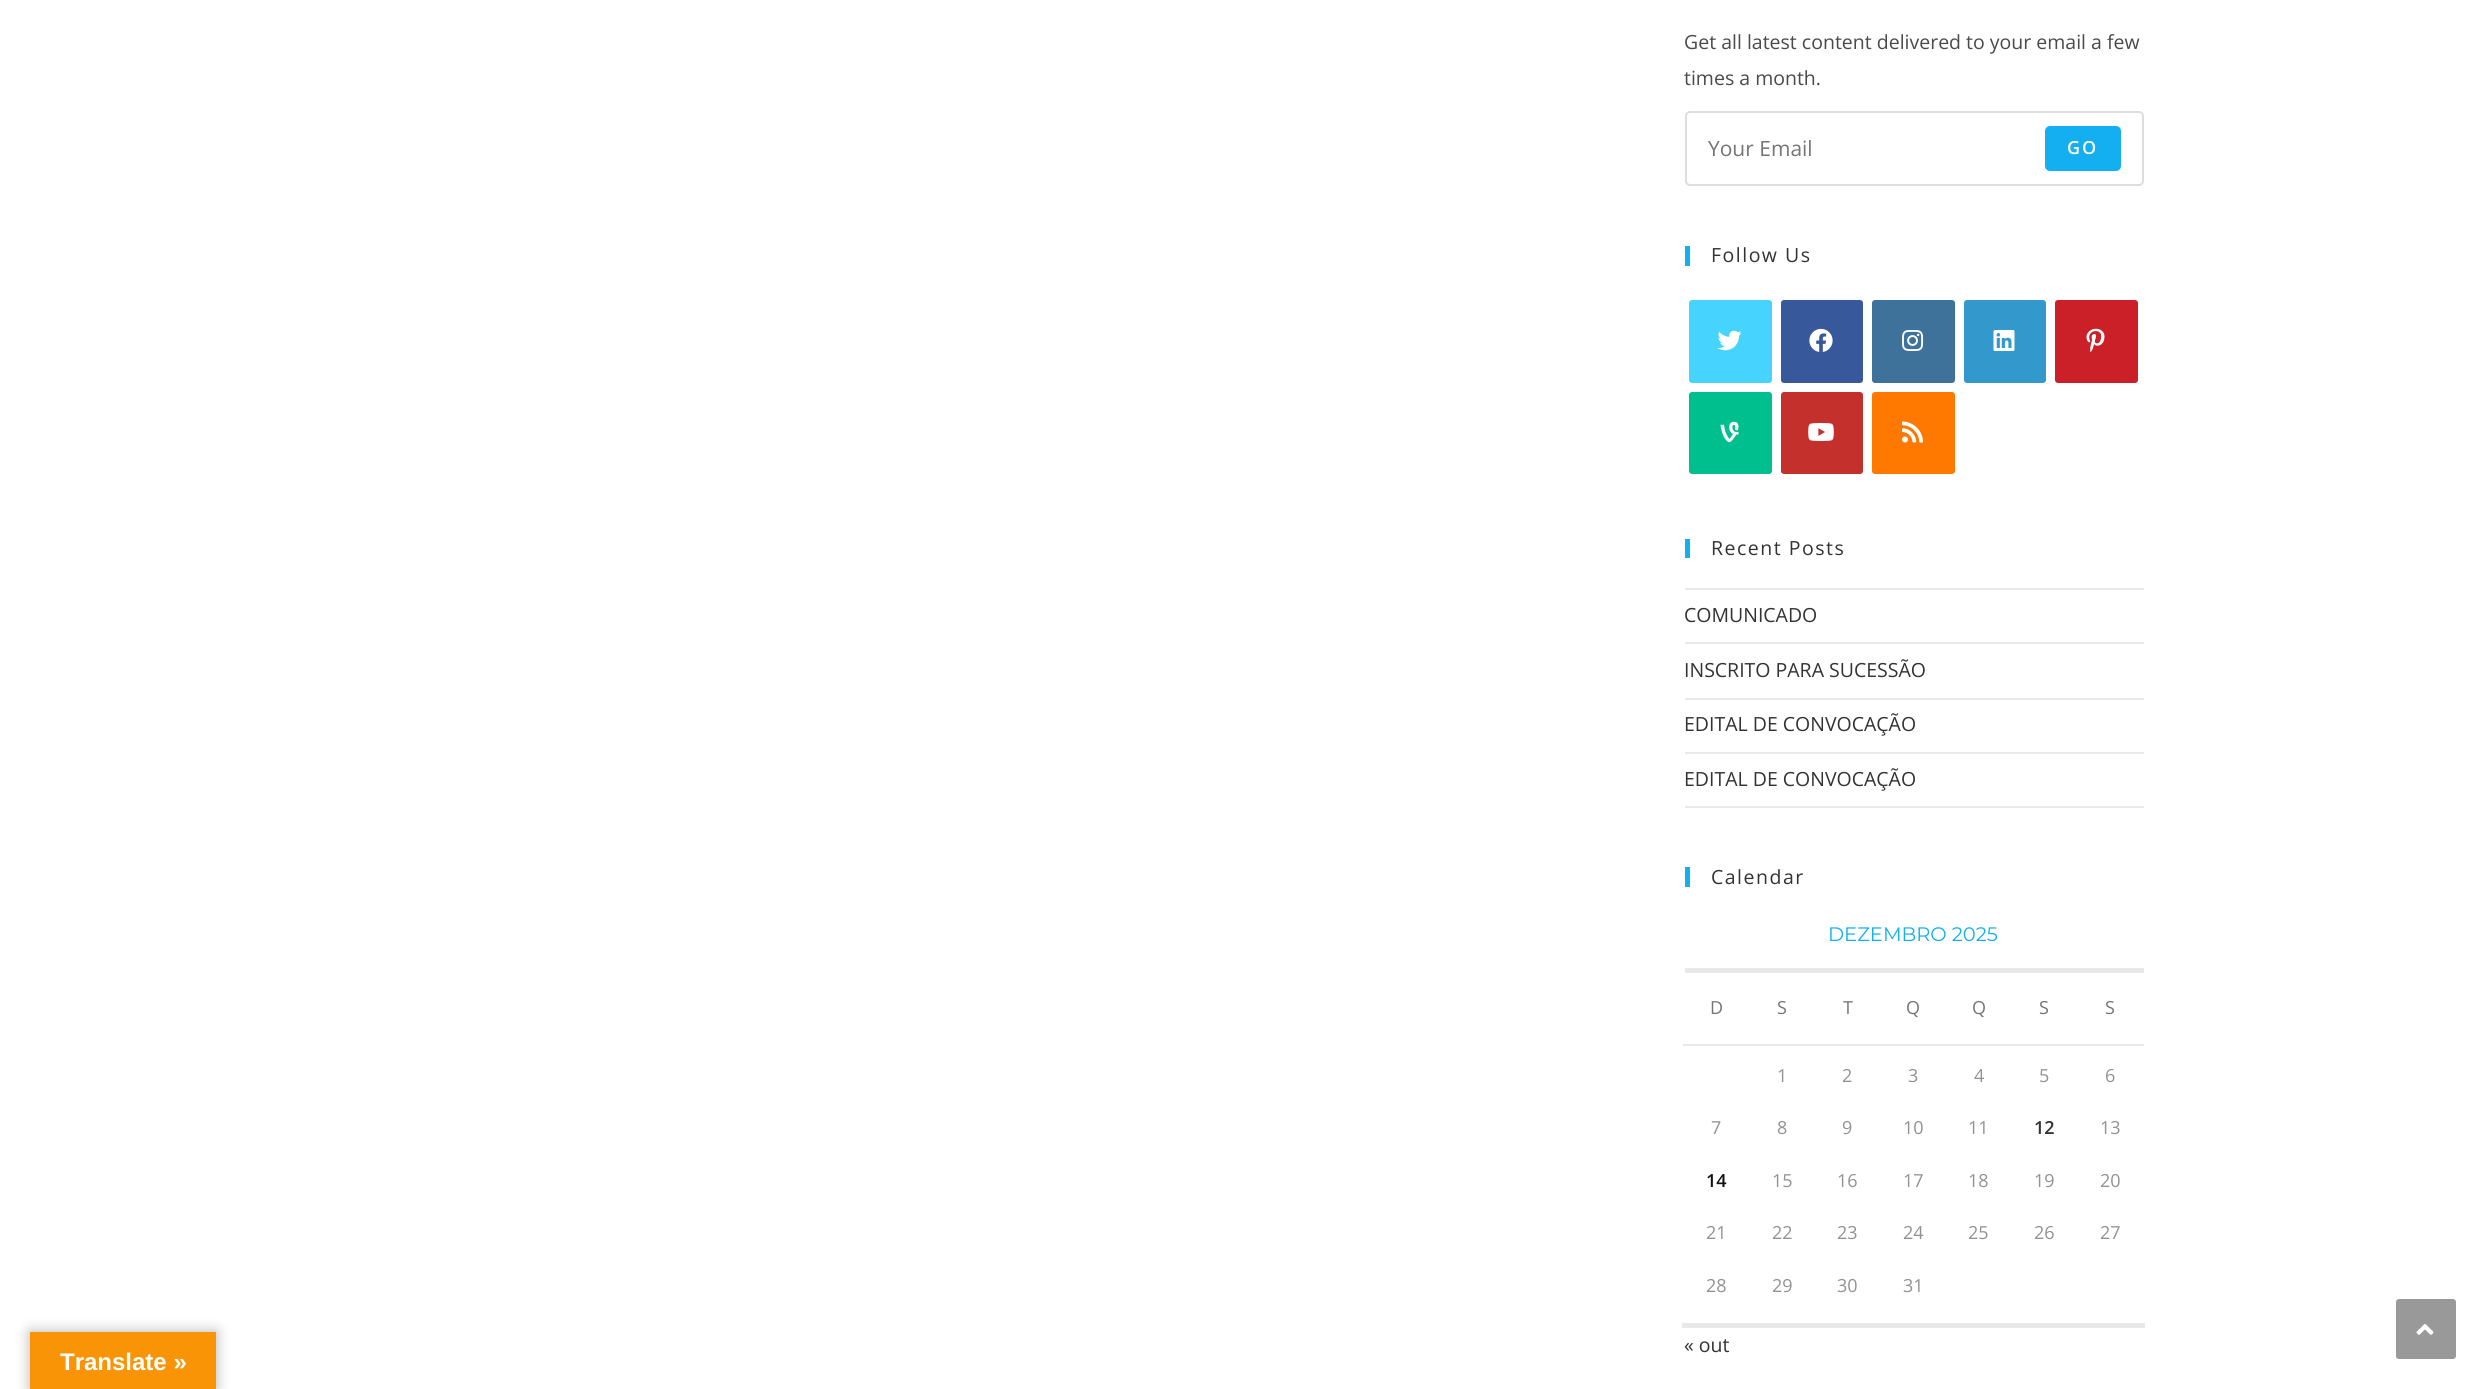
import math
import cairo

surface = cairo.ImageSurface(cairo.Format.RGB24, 2485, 1389)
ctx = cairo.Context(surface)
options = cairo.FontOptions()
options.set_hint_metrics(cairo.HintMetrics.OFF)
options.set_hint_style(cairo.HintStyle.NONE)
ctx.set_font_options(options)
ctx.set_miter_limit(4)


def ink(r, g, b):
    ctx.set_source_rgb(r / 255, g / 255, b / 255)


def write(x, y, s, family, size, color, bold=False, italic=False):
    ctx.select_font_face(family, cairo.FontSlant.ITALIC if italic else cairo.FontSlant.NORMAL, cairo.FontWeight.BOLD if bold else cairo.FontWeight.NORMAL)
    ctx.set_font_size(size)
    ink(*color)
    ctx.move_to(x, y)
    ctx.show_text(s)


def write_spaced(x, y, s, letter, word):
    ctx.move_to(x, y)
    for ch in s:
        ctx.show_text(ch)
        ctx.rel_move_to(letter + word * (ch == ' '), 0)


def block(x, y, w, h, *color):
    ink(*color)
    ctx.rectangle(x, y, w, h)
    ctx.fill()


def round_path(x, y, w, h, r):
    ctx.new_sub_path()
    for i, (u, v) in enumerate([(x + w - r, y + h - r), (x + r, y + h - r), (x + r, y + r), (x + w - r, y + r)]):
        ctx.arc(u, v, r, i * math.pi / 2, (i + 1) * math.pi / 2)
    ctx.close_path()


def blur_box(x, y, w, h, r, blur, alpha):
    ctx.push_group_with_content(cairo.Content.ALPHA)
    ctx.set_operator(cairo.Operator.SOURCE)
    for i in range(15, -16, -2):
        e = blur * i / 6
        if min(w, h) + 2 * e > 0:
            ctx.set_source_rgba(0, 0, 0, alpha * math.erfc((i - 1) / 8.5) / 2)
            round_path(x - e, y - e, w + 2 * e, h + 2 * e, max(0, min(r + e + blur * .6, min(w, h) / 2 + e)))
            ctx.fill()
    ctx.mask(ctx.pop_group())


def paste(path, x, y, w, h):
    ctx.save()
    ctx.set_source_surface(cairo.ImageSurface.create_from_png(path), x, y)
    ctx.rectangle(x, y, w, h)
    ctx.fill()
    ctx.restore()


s1 = dict(family="Open Sans", size=19.5, color=(74, 74, 74))
s2 = dict(family="Open Sans", size=21, color=(117, 117, 117))
s3 = dict(family="Open Sans", size=19.5, color=(51, 51, 51))
s4 = dict(family="Montserrat", size=19.5, color=(19, 175, 240))
s5 = dict(family="Open Sans", size=18, color=(117, 117, 117))
s6 = dict(family="Open Sans", size=18, color=(146, 146, 146))
s7 = dict(family="Open Sans SemiBold", size=18, color=(51, 51, 51))
s8 = dict(family="Open Sans SemiBold", size=18, color=(17, 17, 17))
s9 = dict(family="Liberation Sans", size=24, color=(255, 255, 255), bold=True)

ink(255, 255, 255)
ctx.paint()
write(1684, 49, "Get all latest content delivered to your email a few", **s1)
write(1684, 85, "times a month.", **s1)
round_path(1686, 112, 457, 73, 4)
ink(221, 221, 221)
ctx.stroke()
write(1708, 156, "Your Email", **s2)
ink(19, 175, 240)
round_path(2045, 126, 76, 45, 5)
ctx.fill()
ctx.select_font_face("Open Sans SemiBold")
ctx.set_font_size(18)
ink(255, 255, 255)
write_spaced(2067, 154, "GO", 2, 0)
block(1685, 246, 5, 20, 19, 175, 240)
ctx.select_font_face("Open Sans")
ctx.set_font_size(19.5)
ink(51, 51, 51)
write_spaced(1711, 262, "Follow Us", 1.5, 0)
ink(70, 212, 254)
round_path(1689, 300, 83, 83, 3)
ctx.fill()
paste("pic1.png", 1717, 330, 25, 21)
ink(55, 88, 155)
round_path(1781, 300, 82, 83, 3)
ctx.fill()
paste("pic2.png", 1809, 328, 24, 24)
ink(63, 114, 155)
round_path(1872, 300, 83, 83, 3)
ctx.fill()
paste("pic3.png", 1902, 330, 22, 21)
ink(51, 153, 204)
round_path(1964, 300, 82, 83, 3)
ctx.fill()
paste("pic4.png", 1993, 330, 22, 21)
ink(203, 32, 39)
round_path(2055, 300, 83, 83, 3)
ctx.fill()
paste("pic5.png", 2086, 328, 19, 25)
ink(0, 191, 143)
round_path(1689, 392, 83, 82, 3)
ctx.fill()
paste("pic6.png", 1720, 421, 19, 22)
ink(196, 48, 43)
round_path(1781, 392, 82, 82, 3)
ctx.fill()
paste("pic7.png", 1808, 423, 26, 18)
ink(255, 121, 0)
round_path(1872, 392, 83, 82, 3)
ctx.fill()
paste("pic8.png", 1902, 421, 21, 22)
block(1685, 539, 5, 19, 19, 175, 240)
ink(51, 51, 51)
write_spaced(1711, 555, "Recent Posts", 1.5, 0)
block(1685, 588, 459, 2, 233, 233, 233)
block(1685, 642, 459, 2, 233, 233, 233)
write(1684, 622, "COMUNICADO", **s3)
block(1685, 698, 459, 2, 233, 233, 233)
write(1684, 677, "INSCRITO PARA SUCESSÃO", **s3)
block(1685, 752, 459, 2, 233, 233, 233)
write(1684, 731, "EDITAL DE CONVOCAÇÃO", **s3)
block(1685, 806, 459, 2, 233, 233, 233)
write(1684, 786, "EDITAL DE CONVOCAÇÃO", **s3)
block(1685, 867, 5, 20, 19, 175, 240)
ink(51, 51, 51)
write_spaced(1711, 884, "Calendar", 1.5, 0)
block(1685, 968, 459, 5, 233, 233, 233)
write(1828, 941, "DEZEMBRO 2025", **s4)
write(1710, 1014, "D", **s5)
write(1777, 1014, "S", **s5)
write(1843, 1014, "T", **s5)
write(1906, 1014, "Q", **s5)
write(1972, 1014, "Q", **s5)
write(2039, 1014, "S", **s5)
block(1683, 1044, 461, 2, 233, 233, 233)
write(2105, 1014, "S", **s5)
block(1682, 1323, 463, 5, 233, 233, 233)
write(1777, 1082, "1", **s6)
write(1842, 1082, "2", **s6)
write(1908, 1082, "3", **s6)
write(1974, 1082, "4", **s6)
write(2039, 1082, "5", **s6)
write(2105, 1082, "6", **s6)
write(1711, 1134, "7", **s6)
write(1777, 1134, "8", **s6)
write(1842, 1134, "9", **s6)
write(1903, 1134, "10", **s6)
write(1968, 1134, "11", **s6)
write(2034, 1134, "12", **s7)
write(2100, 1134, "13", **s6)
write(1706, 1187, "14", **s8)
write(1772, 1187, "15", **s6)
write(1837, 1187, "16", **s6)
write(1903, 1187, "17", **s6)
write(1968, 1187, "18", **s6)
write(2034, 1187, "19", **s6)
write(2100, 1187, "20", **s6)
write(1706, 1239, "21", **s6)
write(1772, 1239, "22", **s6)
write(1837, 1239, "23", **s6)
write(1903, 1239, "24", **s6)
write(1968, 1239, "25", **s6)
write(2034, 1239, "26", **s6)
write(2100, 1239, "27", **s6)
write(1706, 1292, "28", **s6)
write(1772, 1292, "29", **s6)
write(1837, 1292, "30", **s6)
write(1903, 1292, "31", **s6)
write(1684, 1352, "« out", **s3)
ink(153, 153, 153)
round_path(2396, 1299, 60, 60, 3)
ctx.fill()
paste("pic9.png", 2416, 1324, 18, 11)
ink(0, 0, 0)
blur_box(30, 1332, 186, 57, 0, 7, 0.3)
block(30, 1332, 186, 57, 248, 148, 6)
write(60, 1370, "Translate »", **s9)
surface.write_to_png("screenshot.png")
